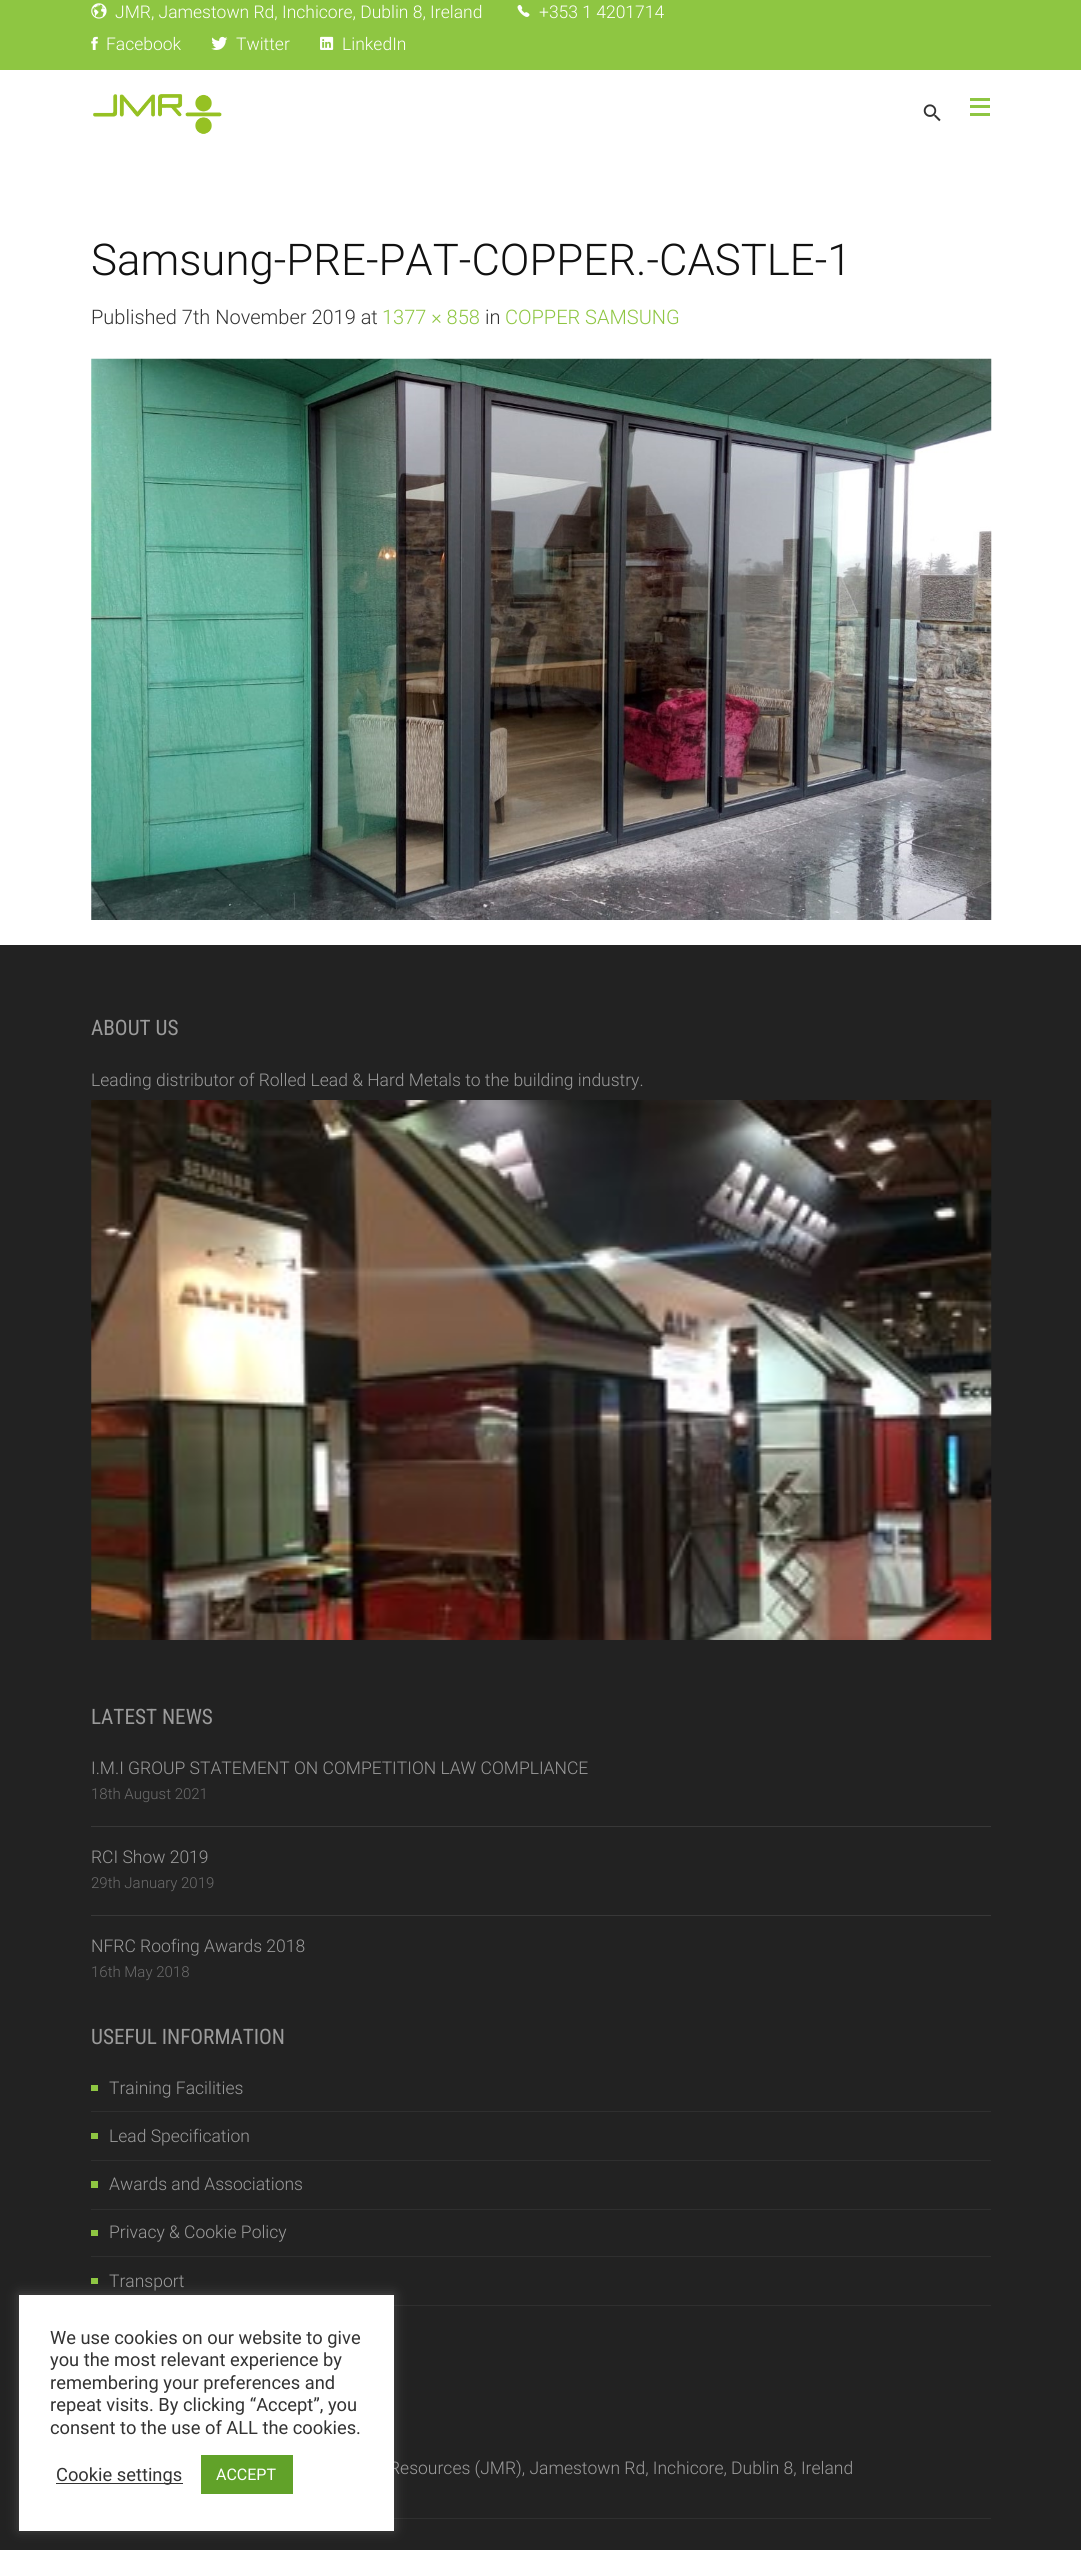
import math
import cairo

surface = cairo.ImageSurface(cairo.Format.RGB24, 1081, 2550)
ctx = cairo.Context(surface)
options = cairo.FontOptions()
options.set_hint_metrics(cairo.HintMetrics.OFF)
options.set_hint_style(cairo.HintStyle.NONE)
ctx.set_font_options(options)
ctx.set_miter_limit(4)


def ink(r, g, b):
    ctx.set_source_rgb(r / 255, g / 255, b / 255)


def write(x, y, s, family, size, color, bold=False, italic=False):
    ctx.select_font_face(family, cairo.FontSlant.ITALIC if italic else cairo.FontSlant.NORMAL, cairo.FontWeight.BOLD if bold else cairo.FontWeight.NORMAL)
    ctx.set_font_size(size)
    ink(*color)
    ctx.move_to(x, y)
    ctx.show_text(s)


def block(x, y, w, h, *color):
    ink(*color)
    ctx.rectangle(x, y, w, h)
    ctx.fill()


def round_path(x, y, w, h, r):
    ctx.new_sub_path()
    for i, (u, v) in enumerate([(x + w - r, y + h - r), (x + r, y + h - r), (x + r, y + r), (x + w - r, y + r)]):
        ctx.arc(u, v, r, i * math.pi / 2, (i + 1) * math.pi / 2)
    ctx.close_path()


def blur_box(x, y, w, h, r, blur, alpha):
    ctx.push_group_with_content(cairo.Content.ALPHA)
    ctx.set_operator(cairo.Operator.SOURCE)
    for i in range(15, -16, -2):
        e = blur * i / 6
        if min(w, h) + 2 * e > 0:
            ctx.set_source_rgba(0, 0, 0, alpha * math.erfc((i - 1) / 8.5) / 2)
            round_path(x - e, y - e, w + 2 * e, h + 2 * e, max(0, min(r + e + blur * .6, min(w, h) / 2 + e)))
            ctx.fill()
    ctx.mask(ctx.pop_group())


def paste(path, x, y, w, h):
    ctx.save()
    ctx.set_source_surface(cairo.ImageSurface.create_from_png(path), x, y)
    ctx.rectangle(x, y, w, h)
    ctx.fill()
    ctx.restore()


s1 = dict(family="Roboto Light", size=17.5, color=(255, 255, 255))
s2 = dict(family="Roboto Light", size=43.75, color=(17, 17, 17))
s3 = dict(family="Roboto Light", size=20, color=(51, 51, 51))
s4 = dict(family="Roboto Light", size=20, color=(142, 198, 66))
s5 = dict(family="Roboto Condensed", size=21.25, color=(155, 155, 155))
s6 = dict(family="Roboto Light", size=17.5, color=(155, 155, 155))
s7 = dict(family="Roboto Light", size=15, color=(107, 107, 107))
s8 = dict(family="Roboto", size=18.3, color=(51, 51, 51))
s9 = dict(family="Roboto", size=16, color=(255, 255, 255))

ink(255, 255, 255)
ctx.paint()
block(0, 0, 1081, 70, 142, 198, 66)
paste("pic1.png", 91, 3, 16, 16)
write(115, 18, "JMR, Jamestown Rd, Inchicore, Dublin 8, Ireland", **s1)
paste("pic2.png", 517, 4, 13, 13)
write(539, 18, "+353 1 4201714", **s1)
paste("pic3.png", 91, 36, 7, 14)
write(106, 50, "Facebook", **s1)
paste("pic4.png", 211, 36, 17, 14)
write(236, 50, "Twitter", **s1)
paste("pic5.png", 320, 36, 14, 14)
write(342, 50, "LinkedIn", **s1)
paste("pic6.png", 93, 94, 129, 40)
paste("pic7.png", 923, 104, 18, 18)
block(970, 98, 20, 3, 142, 198, 66)
block(970, 105, 20, 3, 142, 198, 66)
block(970, 113, 20, 3, 142, 198, 66)
write(91, 275, "Samsung-PRE-PAT-COPPER.-CASTLE-1", **s2)
write(91, 324, "Published 7th November 2019 at", **s3)
write(382, 324, "1377 × 858", **s4)
write(485, 324, "in", **s3)
write(505, 324, "COPPER SAMSUNG", **s4)
paste("pic8.png", 91, 358, 901, 562)
block(0, 945, 1081, 1605, 34, 34, 34)
write(91, 1035, "ABOUT US", **s5)
write(91, 1086, "Leading distributor of Rolled Lead & Hard Metals to the building industry.", **s6)
paste("pic9.png", 91, 1100, 901, 540)
write(91, 1724, "LATEST NEWS", **s5)
block(91, 1826, 900, 1, 56, 56, 56)
write(91, 1774, "I.M.I GROUP STATEMENT ON COMPETITION LAW COMPLIANCE", **s6)
write(91, 1799, "18th August 2021", **s7)
block(91, 1915, 900, 1, 56, 56, 56)
write(91, 1863, "RCI Show 2019", **s6)
write(91, 1888, "29th January 2019", **s7)
write(91, 1952, "NFRC Roofing Awards 2018", **s6)
write(91, 1977, "16th May 2018", **s7)
write(91, 2044, "USEFUL INFORMATION", **s5)
block(91, 2111, 900, 1, 47, 47, 47)
block(91, 2085, 7, 6, 142, 198, 66)
write(109, 2094, "Training Facilities", **s6)
block(91, 2160, 900, 1, 47, 47, 47)
block(91, 2133, 7, 6, 142, 198, 66)
write(109, 2142, "Lead Specification", **s6)
block(91, 2209, 900, 1, 47, 47, 47)
block(91, 2181, 7, 7, 142, 198, 66)
write(109, 2190, "Awards and Associations", **s6)
block(91, 2256, 900, 1, 47, 47, 47)
block(91, 2230, 7, 6, 142, 198, 66)
write(109, 2238, "Privacy & Cookie Policy", **s6)
block(394, 2305, 597, 1, 47, 47, 47)
block(91, 2278, 7, 6, 142, 198, 66)
write(109, 2287, "Transport", **s6)
write(389, 2474, "Resources (JMR), Jamestown Rd, Inchicore, Dublin 8, Ireland", **s6)
block(394, 2518, 597, 1, 47, 47, 47)
ink(172, 171, 171)
blur_box(19, 2294, 375, 236, 0, 6, 0.3)
block(19, 2295, 375, 236, 255, 255, 255)
write(50, 2344, "We use cookies on our website to give", **s8)
write(50, 2366, "you the most relevant experience by", **s8)
write(50, 2389, "remembering your preferences and", **s8)
write(50, 2411, "repeat visits. By clicking “Accept”, you", **s8)
write(50, 2434, "consent to the use of ALL the cookies.", **s8)
block(56, 2483, 127, 1, 51, 51, 51)
write(56, 2481, "Cookie settings", **s8)
block(201, 2455, 92, 39, 97, 162, 41)
write(216, 2480, "ACCEPT", **s9)
surface.write_to_png("screenshot.png")
